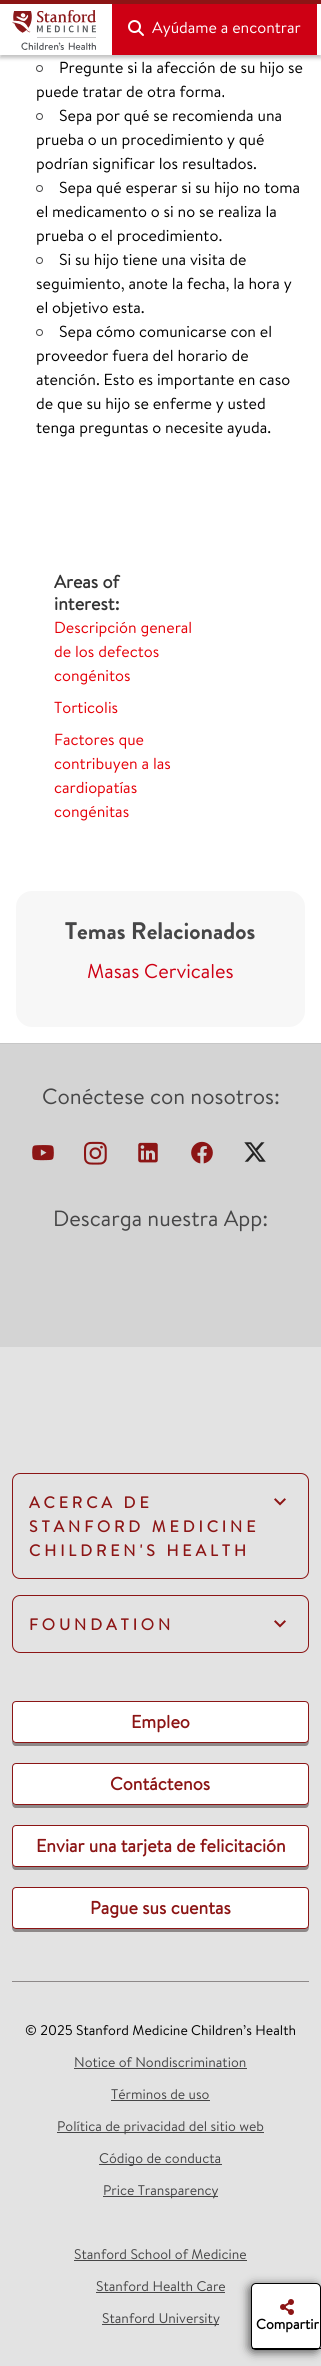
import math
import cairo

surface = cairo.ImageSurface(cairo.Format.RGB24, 321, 2366)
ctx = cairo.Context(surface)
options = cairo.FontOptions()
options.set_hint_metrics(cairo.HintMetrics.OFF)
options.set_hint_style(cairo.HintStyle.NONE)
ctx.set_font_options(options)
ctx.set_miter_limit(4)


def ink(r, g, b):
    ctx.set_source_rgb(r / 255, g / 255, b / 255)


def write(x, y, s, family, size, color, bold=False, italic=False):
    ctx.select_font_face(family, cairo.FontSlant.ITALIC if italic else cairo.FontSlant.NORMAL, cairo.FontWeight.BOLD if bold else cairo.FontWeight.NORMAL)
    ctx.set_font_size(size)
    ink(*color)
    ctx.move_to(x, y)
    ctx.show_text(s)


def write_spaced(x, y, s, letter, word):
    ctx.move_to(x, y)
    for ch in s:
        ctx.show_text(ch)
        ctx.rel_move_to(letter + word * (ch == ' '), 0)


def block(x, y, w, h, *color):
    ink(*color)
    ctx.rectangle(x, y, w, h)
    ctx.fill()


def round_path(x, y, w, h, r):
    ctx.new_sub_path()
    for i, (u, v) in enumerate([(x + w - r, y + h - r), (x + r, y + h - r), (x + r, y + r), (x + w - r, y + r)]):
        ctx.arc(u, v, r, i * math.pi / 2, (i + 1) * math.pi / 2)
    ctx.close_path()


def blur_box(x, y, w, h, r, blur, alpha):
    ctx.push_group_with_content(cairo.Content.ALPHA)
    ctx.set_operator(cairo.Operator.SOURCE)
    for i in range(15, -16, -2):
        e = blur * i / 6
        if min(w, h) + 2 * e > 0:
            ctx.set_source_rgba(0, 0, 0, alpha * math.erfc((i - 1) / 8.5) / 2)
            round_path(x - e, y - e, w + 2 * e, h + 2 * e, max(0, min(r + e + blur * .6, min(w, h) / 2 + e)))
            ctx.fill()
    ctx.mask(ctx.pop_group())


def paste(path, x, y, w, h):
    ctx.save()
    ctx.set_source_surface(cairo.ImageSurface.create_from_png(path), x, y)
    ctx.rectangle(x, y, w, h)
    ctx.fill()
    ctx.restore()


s1 = dict(family="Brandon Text", size=16, color=(255, 255, 255))
s2 = dict(family="Brandon Text", size=16, color=(0, 0, 0))
s3 = dict(family="Brandon Text", size=18, color=(51, 51, 51), bold=True)
s4 = dict(family="Brandon Text", size=16, color=(229, 0, 8))
s5 = dict(family="Brandon Text", size=14, color=(0, 0, 0), bold=True)
s6 = dict(family="Brandon Grotesque", size=24, color=(70, 70, 71))
s7 = dict(family="Brandon Text", size=20, color=(206, 0, 20))
s8 = dict(family="Brandon Text", size=22, color=(70, 70, 71))
s9 = dict(family="Brandon Text", size=18, color=(140, 21, 21), bold=True)
s10 = dict(family="Brandon Text", size=14, color=(0, 0, 0))
s11 = dict(family="Brandon Text", size=14, color=(70, 70, 71))

ink(255, 255, 255)
ctx.paint()
ink(0, 0, 0)
blur_box(0, 3, 321, 55, 0, 2, 0.25)
block(0, 4, 321, 51, 255, 255, 255)
block(0, 0, 321, 4, 140, 21, 21)
paste("pic1.png", 12, 10, 84, 40)
block(112, 4, 205, 51, 206, 0, 20)
paste("pic2.png", 128, 20, 16, 16)
write(152, 33, "Ayúdame a encontrar", **s1)
ctx.new_path()
ctx.arc(39.5, 68.5, 3, 0, 2 * math.pi)
ink(70, 70, 71)
ctx.set_line_width(1)
ctx.stroke()
write(59, 73, "Pregunte si la afección de su hijo se", **s2)
write(36, 97, "puede tratar de otra forma.", **s2)
ctx.new_path()
ctx.arc(39.5, 116.5, 3, 0, 2 * math.pi)
ink(70, 70, 71)
ctx.stroke()
write(59, 121, "Sepa por qué se recomienda una", **s2)
write(36, 145, "prueba o un procedimiento y qué", **s2)
write(36, 169, "podrían significar los resultados.", **s2)
ctx.new_path()
ctx.arc(39.5, 188.5, 3, 0, 2 * math.pi)
ink(70, 70, 71)
ctx.stroke()
write(59, 193, "Sepa qué esperar si su hijo no toma", **s2)
write(36, 217, "el medicamento o si no se realiza la", **s2)
write(36, 241, "prueba o el procedimiento.", **s2)
ctx.new_path()
ctx.arc(39.5, 260.5, 3, 0, 2 * math.pi)
ink(70, 70, 71)
ctx.stroke()
write(59, 265, "Si su hijo tiene una visita de", **s2)
write(36, 289, "seguimiento, anote la fecha, la hora y", **s2)
write(36, 313, "el objetivo esta.", **s2)
ctx.new_path()
ctx.arc(39.5, 332.5, 3, 0, 2 * math.pi)
ink(70, 70, 71)
ctx.stroke()
write(59, 337, "Sepa cómo comunicarse con el", **s2)
write(36, 361, "proveedor fuera del horario de", **s2)
write(36, 385, "atención. Esto es importante en caso", **s2)
write(36, 409, "de que su hijo se enferme y usted", **s2)
write(36, 433, "tenga preguntas o necesite ayuda.", **s2)
write(54, 588, "Areas of", **s3)
write(54, 610, "interest:", **s3)
write(54, 633, "Descripción general", **s4)
write(54, 657, "de los defectos", **s4)
write(54, 681, "congénitos", **s4)
write(54, 713, "Torticolis", **s4)
write(54, 745, "Factores que", **s4)
write(54, 769, "contribuyen a las", **s4)
write(54, 793, "cardiopatías", **s4)
write(54, 817, "congénitas", **s4)
block(0, 1347, 321, 1019, 227, 227, 227)
ink(0, 0, 0)
blur_box(249, 2285, 70, 67, 5, 5, 0.63)
ink(255, 255, 255)
round_path(251.5, 2283.5, 69, 66, 4.5)
ctx.fill_preserve()
ink(0, 0, 0)
ctx.stroke()
block(252, 2348, 69, 1, 0, 0, 0)
paste("pic3.png", 280, 2299, 14, 16)
write(256, 2329, "Compartir", **s5)
ink(247, 247, 247)
round_path(16, 891, 289, 136, 16)
ctx.fill()
write(65, 939, "Temas Relacionados", **s6)
write(87, 978, "Masas Cervicales", **s7)
block(0, 1043, 321, 1, 199, 199, 199)
block(0, 1044, 321, 303, 212, 212, 212)
write(42, 1104, "Conéctese con nosotros:", **s8)
paste("pic4.png", 32, 1145, 22, 16)
paste("pic5.png", 84, 1141, 23, 24)
paste("pic6.png", 138, 1142, 20, 21)
paste("pic7.png", 191, 1141, 22, 23)
paste("pic8.png", 244, 1142, 22, 20)
write(53, 1226, "Descarga nuestra App:", **s8)
round_path(12.5, 1473.5, 296, 105, 7.5)
ink(140, 21, 21)
ctx.stroke()
ctx.select_font_face("Brandon Text", cairo.FontSlant.NORMAL, cairo.FontWeight.BOLD)
ctx.set_font_size(16)
write_spaced(29, 1508, "ACERCA DE", 3.9, 0)
paste("pic9.png", 274, 1498, 12, 8)
write_spaced(29, 1532, "STANFORD MEDICINE", 3.9, 0)
write_spaced(29, 1556, "CHILDREN'S HEALTH", 3.9, 0)
round_path(12.5, 1595.5, 296, 57, 7.5)
ctx.stroke()
write_spaced(29, 1630, "FOUNDATION", 3.9, 0)
paste("pic9.png", 274, 1620, 12, 8)
ink(142, 137, 137)
ctx.new_path()
ctx.move_to(12, 1739)
ctx.curve_to(12, 1742, 12, 1745, 15, 1746)
ctx.line_to(305, 1746)
ctx.curve_to(309, 1746, 309, 1742, 309, 1739)
ctx.curve_to(309, 1741, 307, 1743, 305, 1743)
ctx.line_to(16, 1743)
ctx.curve_to(14, 1743, 12, 1741, 12, 1739)
ctx.close_path()
ctx.fill()
ink(255, 255, 255)
round_path(12.5, 1701.5, 296, 41, 3.5)
ctx.fill_preserve()
ink(140, 21, 21)
ctx.stroke()
write(131, 1728, "Empleo", **s9)
ink(142, 137, 137)
ctx.new_path()
ctx.move_to(12, 1801)
ctx.curve_to(12, 1804, 12, 1807, 15, 1808)
ctx.line_to(305, 1808)
ctx.curve_to(309, 1808, 309, 1804, 309, 1801)
ctx.curve_to(309, 1803, 307, 1805, 305, 1805)
ctx.line_to(16, 1805)
ctx.curve_to(14, 1805, 12, 1803, 12, 1801)
ctx.close_path()
ctx.fill()
ink(255, 255, 255)
round_path(12.5, 1763.5, 296, 41, 3.5)
ctx.fill_preserve()
ink(140, 21, 21)
ctx.stroke()
write(110, 1790, "Contáctenos", **s9)
ink(142, 137, 137)
ctx.new_path()
ctx.move_to(12, 1863)
ctx.curve_to(12, 1866, 12, 1869, 15, 1870)
ctx.line_to(305, 1870)
ctx.curve_to(309, 1870, 309, 1866, 309, 1863)
ctx.curve_to(309, 1865, 307, 1867, 305, 1867)
ctx.line_to(16, 1867)
ctx.curve_to(14, 1867, 12, 1865, 12, 1863)
ctx.close_path()
ctx.fill()
ink(255, 255, 255)
round_path(12.5, 1825.5, 296, 41, 3.5)
ctx.fill_preserve()
ink(140, 21, 21)
ctx.stroke()
write(36, 1852, "Enviar una tarjeta de felicitación", **s9)
ink(142, 137, 137)
ctx.new_path()
ctx.move_to(12, 1925)
ctx.curve_to(12, 1928, 12, 1931, 15, 1932)
ctx.line_to(305, 1932)
ctx.curve_to(309, 1932, 309, 1928, 309, 1925)
ctx.curve_to(309, 1927, 307, 1929, 305, 1929)
ctx.line_to(16, 1929)
ctx.curve_to(14, 1929, 12, 1927, 12, 1925)
ctx.close_path()
ctx.fill()
ink(255, 255, 255)
round_path(12.5, 1887.5, 296, 41, 3.5)
ctx.fill_preserve()
ink(140, 21, 21)
ctx.stroke()
write(90, 1914, "Pague sus cuentas", **s9)
block(12, 1981, 297, 1, 142, 137, 137)
write(25, 2035, "© 2025 Stanford Medicine Children’s Health", **s10)
write(74, 2067, "Notice of Nondiscrimination", **s11)
block(74, 2068, 173, 1, 70, 70, 71)
write(111, 2099, "Términos de uso", **s11)
block(111, 2100, 99, 1, 70, 70, 71)
block(57, 2132, 207, 1, 70, 70, 71)
write(57, 2131, "Política de privacidad del sitio web", **s11)
block(99, 2164, 123, 1, 70, 70, 71)
write(99, 2163, "Código de conducta", **s11)
block(103, 2196, 115, 1, 70, 70, 71)
write(103, 2195, "Price Transparency", **s11)
write(74, 2259, "Stanford School of Medicine", **s11)
block(74, 2260, 173, 1, 70, 70, 71)
write(96, 2291, "Stanford Health Care", **s11)
block(96, 2292, 129, 1, 70, 70, 71)
block(102, 2324, 117, 1, 70, 70, 71)
write(102, 2323, "Stanford University", **s11)
surface.write_to_png("screenshot.png")
